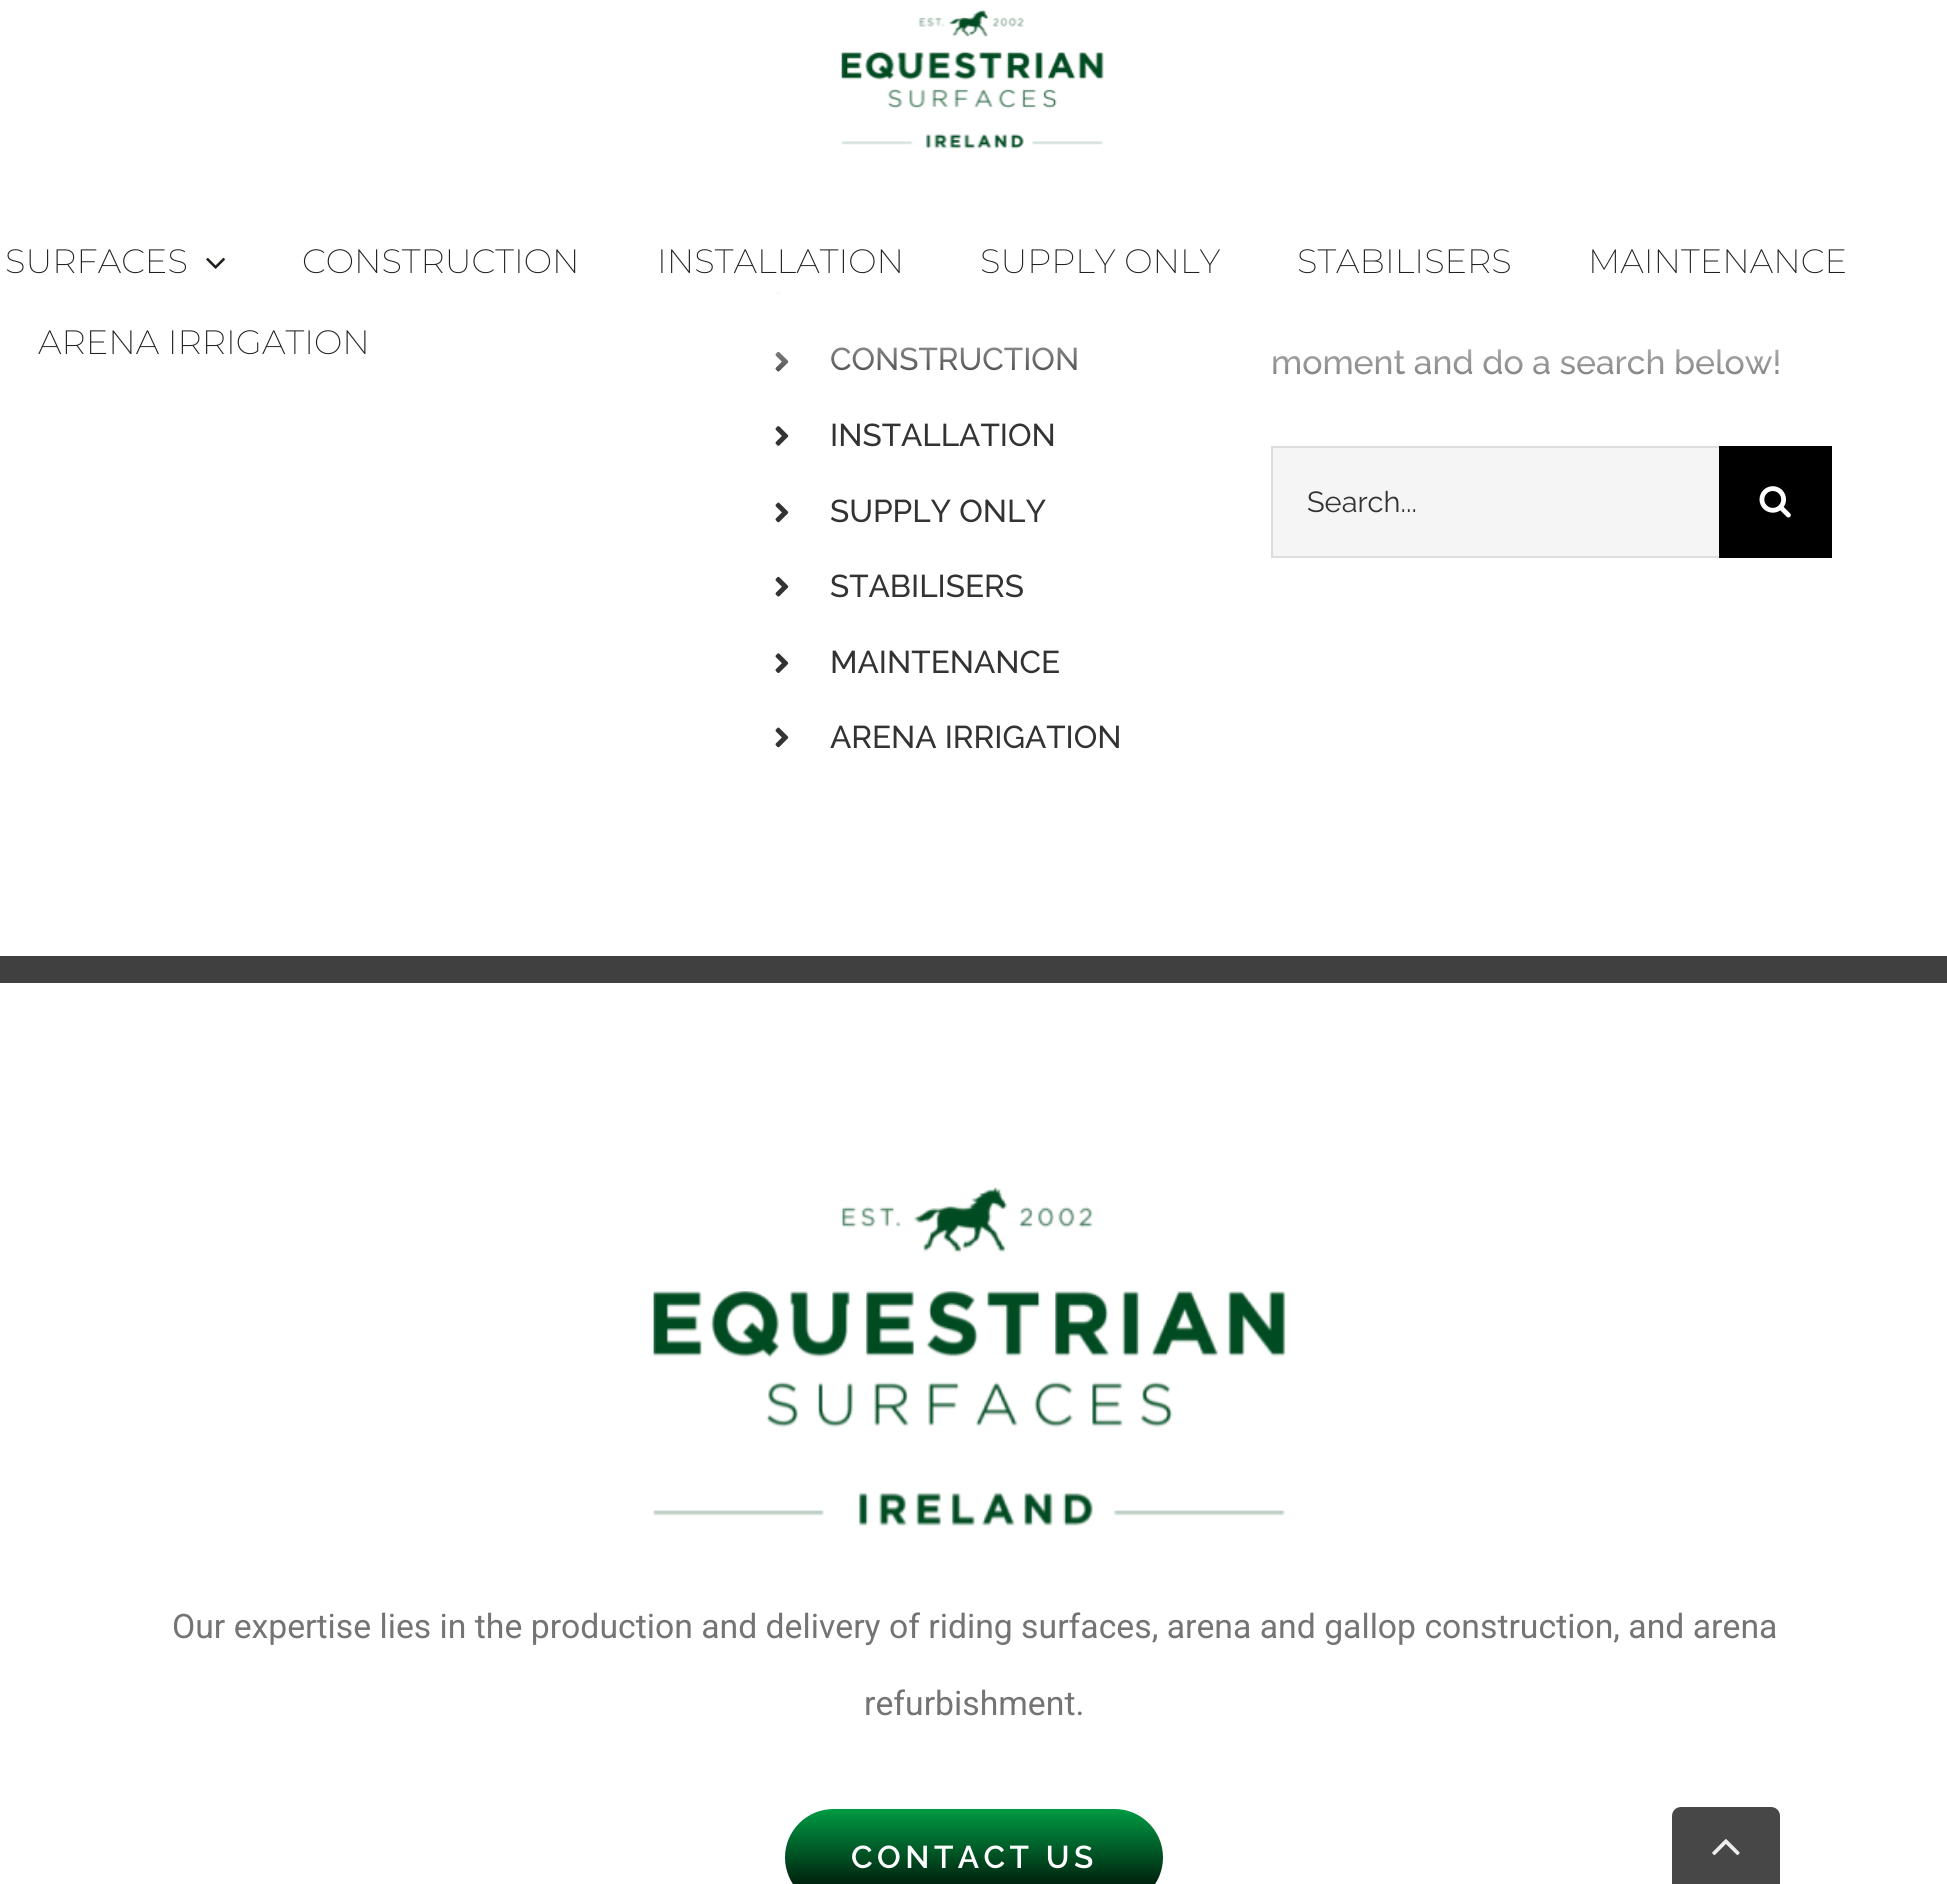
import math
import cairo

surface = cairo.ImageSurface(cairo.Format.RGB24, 1947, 1884)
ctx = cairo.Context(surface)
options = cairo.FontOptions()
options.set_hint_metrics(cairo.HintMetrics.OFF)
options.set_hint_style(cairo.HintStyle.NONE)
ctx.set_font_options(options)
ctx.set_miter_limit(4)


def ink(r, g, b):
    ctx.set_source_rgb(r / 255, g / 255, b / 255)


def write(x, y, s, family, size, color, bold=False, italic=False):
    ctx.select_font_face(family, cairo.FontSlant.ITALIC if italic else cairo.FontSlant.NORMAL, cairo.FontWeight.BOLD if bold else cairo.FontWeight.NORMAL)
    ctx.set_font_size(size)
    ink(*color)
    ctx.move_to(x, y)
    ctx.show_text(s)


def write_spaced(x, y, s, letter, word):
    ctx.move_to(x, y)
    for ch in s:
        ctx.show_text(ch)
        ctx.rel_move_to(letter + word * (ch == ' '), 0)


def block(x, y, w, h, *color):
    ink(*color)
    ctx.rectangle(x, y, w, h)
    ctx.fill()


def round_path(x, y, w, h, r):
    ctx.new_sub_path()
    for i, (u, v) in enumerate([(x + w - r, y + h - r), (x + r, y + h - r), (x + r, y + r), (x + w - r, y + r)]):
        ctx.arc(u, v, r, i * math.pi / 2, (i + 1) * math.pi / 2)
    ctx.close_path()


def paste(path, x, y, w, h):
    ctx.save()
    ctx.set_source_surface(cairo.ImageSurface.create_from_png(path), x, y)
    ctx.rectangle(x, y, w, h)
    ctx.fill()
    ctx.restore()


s1 = dict(family="Raleway Medium", size=31.5, color=(51, 51, 51))
s2 = dict(family="Raleway Medium", size=33.75, color=(116, 116, 116))
s3 = dict(family="Montserrat ExtraLight", size=33.75, color=(34, 32, 29))
s4 = dict(family="Raleway", size=29, color=(51, 51, 51))
s5 = dict(family="Roboto", size=33.75, color=(116, 116, 116))

ink(255, 255, 255)
ctx.paint()
paste("pic3.png", 775, 291, 8, 4)
paste("pic4.png", 775, 351, 14, 21)
write(830, 370, "CONSTRUCTION", **s1)
write(1271, 374, "moment and do a search below!", **s2)
gradient = cairo.LinearGradient(974, 0, 974, 387)
gradient.add_color_stop_rgba(0.75, 1, 1, 1, 1)
gradient.add_color_stop_rgba(1, 1, 1, 1, 0)
ctx.set_source(gradient)
ctx.rectangle(775, 291, 1004, 84)
ctx.fill()
paste("pic1.png", 841, 9, 263, 140)
write(5, 273, "SURFACES", **s3)
paste("pic2.png", 206, 257, 19, 12)
write(302, 273, "CONSTRUCTION", **s3)
write(657, 273, "INSTALLATION", **s3)
write(980, 273, "SUPPLY ONLY", **s3)
write(1297, 273, "STABILISERS", **s3)
write(1588, 273, "MAINTENANCE", **s3)
write(38, 354, "ARENA IRRIGATION", **s3)
paste("pic5.png", 775, 426, 14, 20)
write(830, 446, "INSTALLATION", **s1)
paste("pic6.png", 775, 502, 14, 21)
write(830, 522, "SUPPLY ONLY", **s1)
paste("pic4.png", 775, 576, 14, 21)
write(830, 597, "STABILISERS", **s1)
paste("pic7.png", 775, 653, 14, 20)
write(830, 673, "MAINTENANCE", **s1)
paste("pic6.png", 775, 727, 14, 21)
write(830, 748, "ARENA IRRIGATION", **s1)
block(1273, 448, 446, 108, 245, 245, 245)
block(1271, 446, 448, 2, 221, 221, 221)
block(1271, 556, 448, 2, 221, 221, 221)
block(1271, 446, 2, 112, 221, 221, 221)
write(1307, 512, "Search...", **s4)
block(1719, 446, 113, 112, 0, 0, 0)
paste("pic8.png", 1759, 486, 32, 32)
block(0, 956, 1947, 27, 64, 64, 64)
paste("pic9.png", 653, 1186, 633, 340)
write(172, 1638, "Our expertise lies in the production and delivery of riding surfaces, arena and gallop construction, and arena", **s5)
write(864, 1715, "refurbishment.", **s5)
gradient = cairo.LinearGradient(974, 1809, 974, 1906)
gradient.add_color_stop_rgba(0, 0, 0.608, 0.263, 1)
gradient.add_color_stop_rgba(1, 0, 0, 0, 1)
ctx.set_source(gradient)
round_path(785, 1809, 378, 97, 48.5)
ctx.fill()
ctx.select_font_face("Raleway SemiBold")
ctx.set_font_size(31.5)
ink(255, 255, 255)
write_spaced(851, 1868, "CONTACT US", 4.5, 0)
ink(71, 71, 71)
ctx.new_path()
ctx.move_to(1681, 1807)
ctx.line_to(1771, 1807)
ctx.curve_to(1776, 1807, 1780, 1811, 1780, 1816)
ctx.line_to(1780, 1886)
ctx.line_to(1672, 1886)
ctx.line_to(1672, 1816)
ctx.curve_to(1672, 1811, 1676, 1807, 1681, 1807)
ctx.close_path()
ctx.fill()
paste("pic10.png", 1712, 1839, 28, 17)
surface.write_to_png("screenshot.png")
